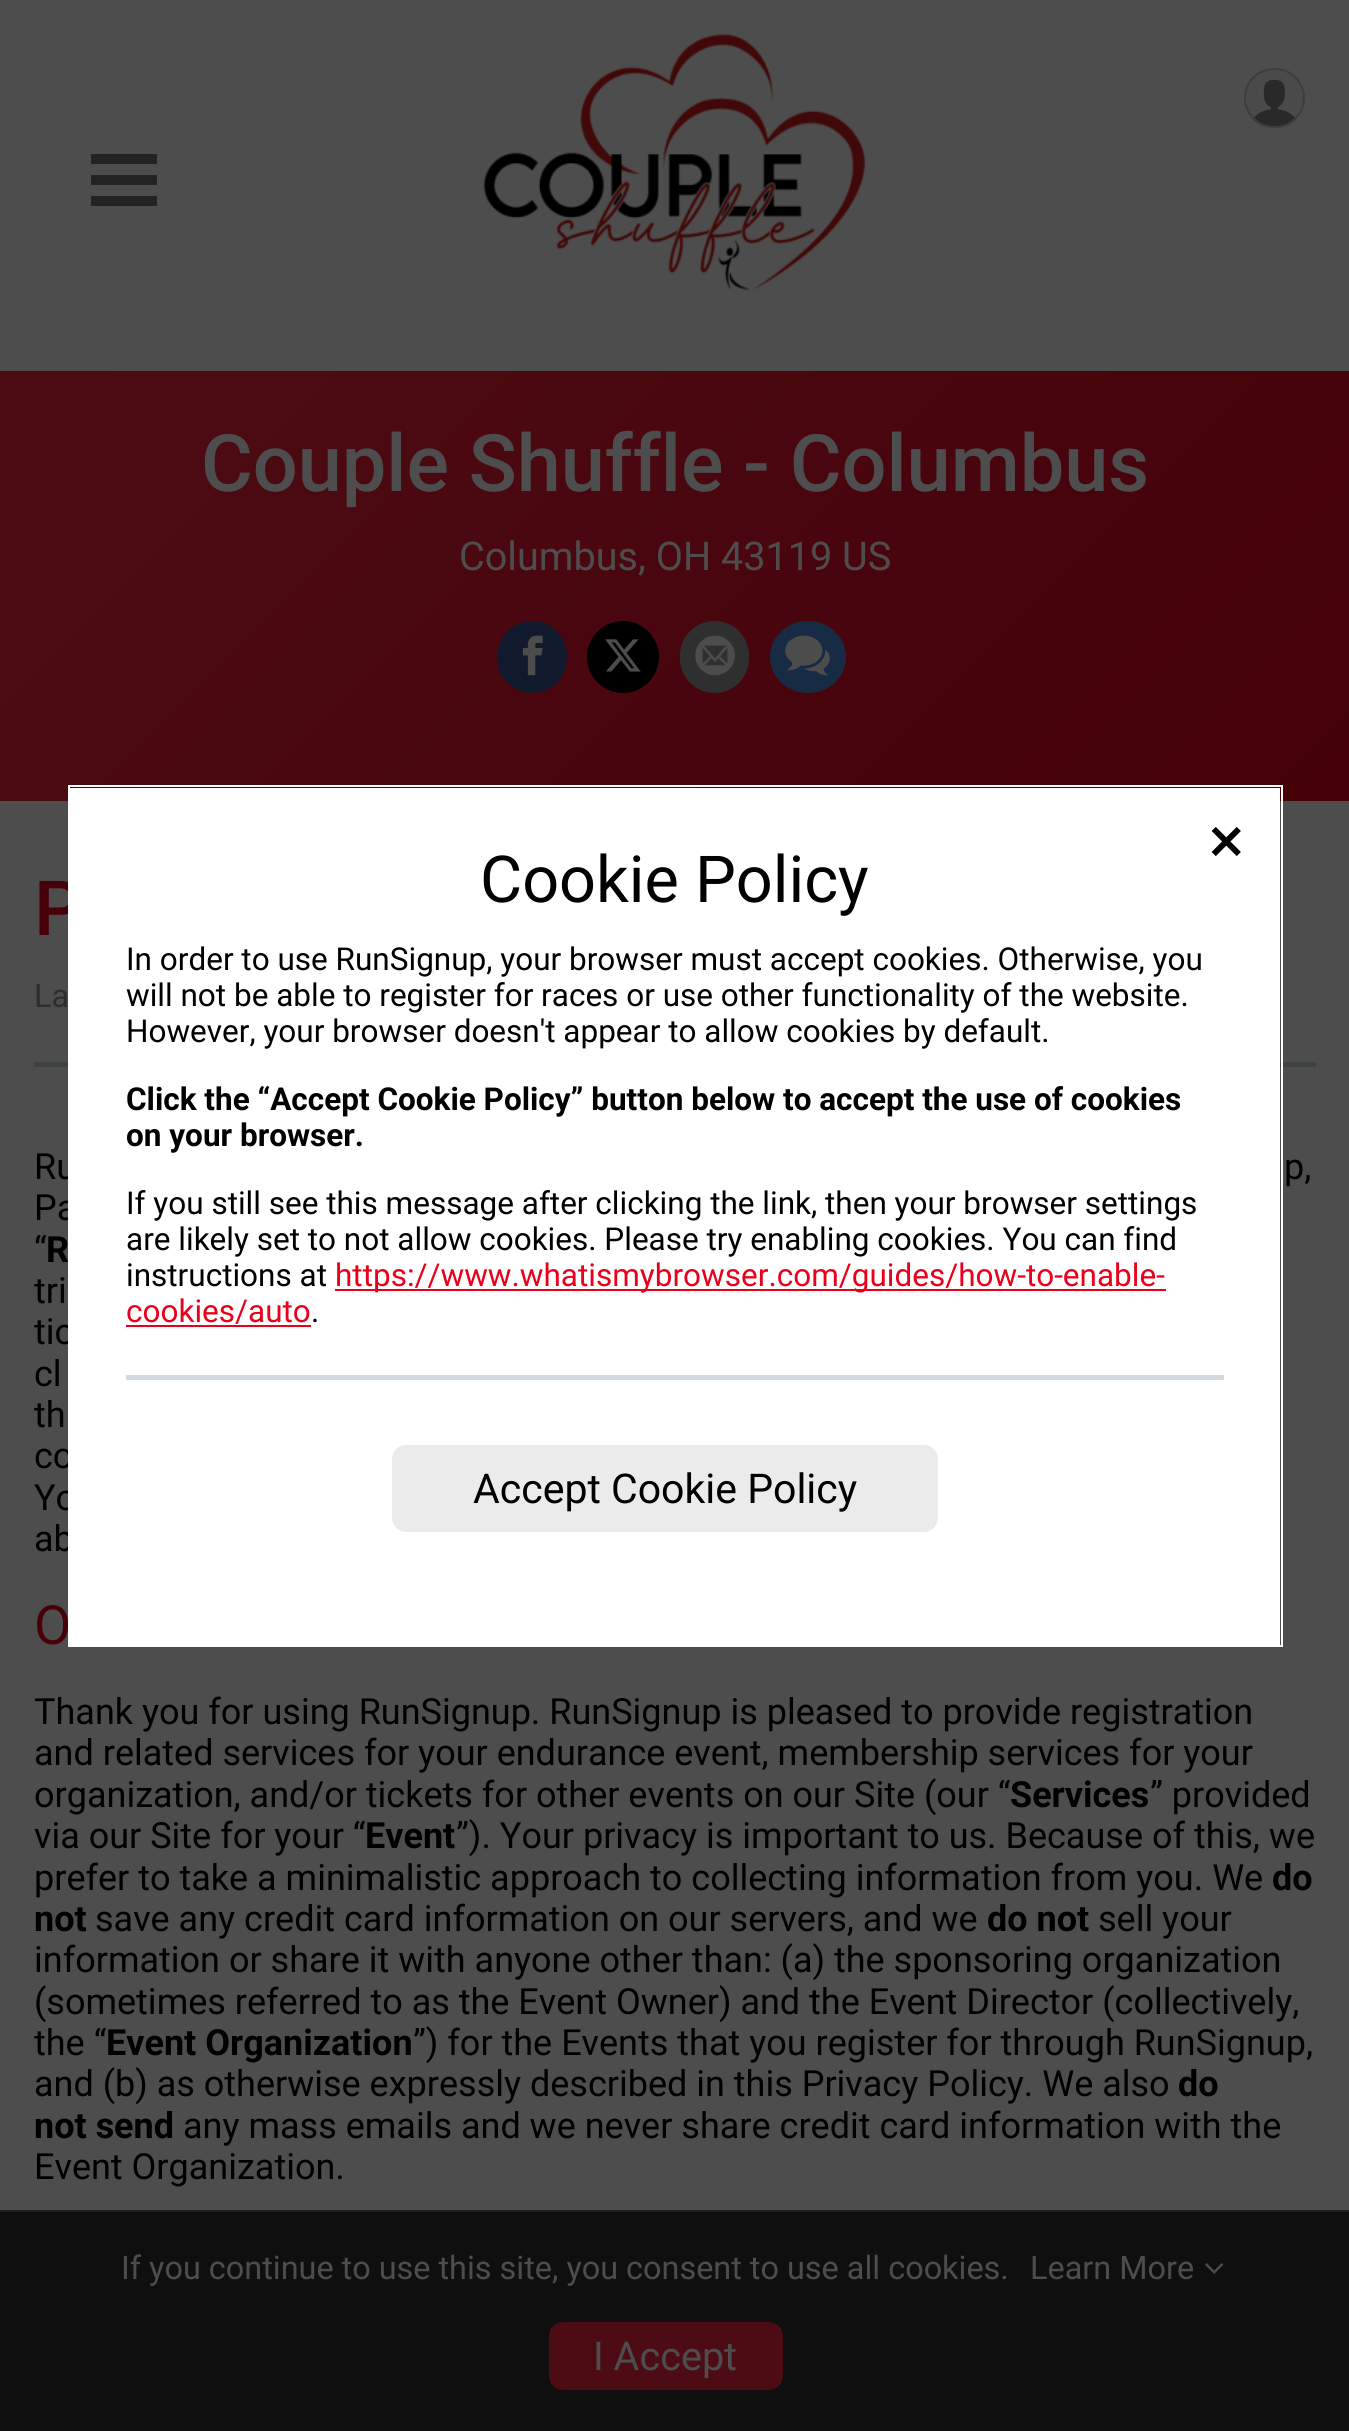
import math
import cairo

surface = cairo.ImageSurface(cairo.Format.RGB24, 1349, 2431)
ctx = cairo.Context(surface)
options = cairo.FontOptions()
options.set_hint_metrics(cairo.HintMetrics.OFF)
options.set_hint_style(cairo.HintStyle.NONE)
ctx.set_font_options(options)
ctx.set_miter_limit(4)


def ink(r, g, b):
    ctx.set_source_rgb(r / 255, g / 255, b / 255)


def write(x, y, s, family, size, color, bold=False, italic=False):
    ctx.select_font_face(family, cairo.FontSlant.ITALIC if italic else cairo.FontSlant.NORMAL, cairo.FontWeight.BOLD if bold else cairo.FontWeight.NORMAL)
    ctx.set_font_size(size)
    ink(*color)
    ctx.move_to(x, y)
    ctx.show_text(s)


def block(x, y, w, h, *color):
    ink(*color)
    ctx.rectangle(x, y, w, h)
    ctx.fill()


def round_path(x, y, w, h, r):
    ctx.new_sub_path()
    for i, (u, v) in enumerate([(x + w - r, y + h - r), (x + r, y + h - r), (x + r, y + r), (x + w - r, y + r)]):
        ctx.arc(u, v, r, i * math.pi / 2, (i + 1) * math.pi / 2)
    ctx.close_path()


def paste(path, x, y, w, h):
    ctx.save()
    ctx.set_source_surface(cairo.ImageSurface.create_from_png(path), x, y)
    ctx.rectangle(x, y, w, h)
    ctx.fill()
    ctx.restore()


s1 = dict(family="Roboto Medium", size=79.25, color=(77, 77, 77))
s2 = dict(family="Roboto", size=39.6, color=(77, 77, 77))
s3 = dict(family="Roboto Medium", size=76, color=(71, 0, 8))
s4 = dict(family="Roboto", size=32.4, color=(46, 46, 46))
s5 = dict(family="Roboto", size=36, color=(0, 0, 0))
s6 = dict(family="Roboto", size=36, color=(0, 0, 0), bold=True)
s7 = dict(family="Roboto", size=54, color=(71, 0, 8))
s8 = dict(family="Roboto", size=64.75, color=(0, 0, 0))
s9 = dict(family="Roboto", size=31.5, color=(0, 0, 0))
s10 = dict(family="Roboto", size=31.5, color=(0, 0, 0), bold=True)
s11 = dict(family="Roboto", size=31.5, color=(235, 0, 27))
s12 = dict(family="Roboto", size=41, color=(0, 0, 0))
s13 = dict(family="Roboto", size=32.4, color=(77, 77, 77))

ink(77, 77, 77)
ctx.paint()
paste("pic1.png", 483, 33, 383, 260)
paste("pic2.png", 1247, 70, 56, 56)
round_path(1245, 69, 59, 58, 29)
ink(61, 61, 61)
ctx.stroke()
ink(35, 35, 35)
ctx.new_path()
ctx.move_to(157, 154)
ctx.line_to(157, 164)
ctx.line_to(91, 164)
ctx.line_to(91, 154)
ctx.close_path()
ctx.move_to(157, 175)
ctx.line_to(157, 185)
ctx.line_to(91, 185)
ctx.line_to(91, 175)
ctx.close_path()
ctx.move_to(157, 196)
ctx.line_to(157, 206)
ctx.line_to(91, 206)
ctx.line_to(91, 196)
ctx.close_path()
ctx.fill()
gradient = cairo.LinearGradient(1120, 1031, 230, 141)
gradient.add_color_stop_rgba(0, 0.271, 0, 0.031, 1)
gradient.add_color_stop_rgba(1, 0.302, 0.047, 0.078, 1)
ctx.set_source(gradient)
ctx.rectangle(0, 371, 1349, 430)
ctx.fill()
write(201, 491, "Couple Shuffle - Columbus", **s1)
write(459, 570, "Columbus, OH 43119 US", **s2)
ink(17, 25, 45)
round_path(497, 621, 70, 72, 35)
ctx.fill()
paste("pic3.png", 522, 635, 21, 41)
ink(0, 0, 0)
ctx.arc(623, 657, 36, 0, 2 * math.pi)
ctx.fill()
paste("pic4.png", 605, 639, 36, 33)
ink(47, 47, 47)
round_path(680, 621, 69, 72, 34.5)
ctx.fill()
paste("pic5.png", 695, 635, 40, 41)
ink(23, 44, 68)
ctx.new_path()
ctx.move_to(808, 621)
ctx.curve_to(829, 621, 846, 637, 846, 657)
ctx.curve_to(846, 677, 829, 693, 808, 693)
ctx.curve_to(787, 693, 770, 677, 770, 657)
ctx.curve_to(770, 637, 787, 621, 808, 621)
ctx.close_path()
ctx.fill()
paste("pic6.png", 785, 635, 45, 41)
write(34, 935, "P", **s3)
write(34, 1007, "La", **s4)
block(34, 1062, 1282, 5, 63, 66, 67)
write(34, 1179, "Ru", **s5)
write(1284, 1179, "p,", **s5)
write(34, 1220, "Pa", **s5)
write(34, 1262, "“", **s5)
write(46, 1262, "R", **s6)
write(34, 1303, "tri", **s5)
write(34, 1344, "tic", **s5)
write(34, 1386, "cl", **s5)
write(34, 1427, "th", **s5)
write(34, 1468, "co", **s5)
write(34, 1510, "Yo", **s5)
write(34, 1551, "ab", **s5)
write(34, 1644, "O", **s7)
write(34, 1724, "Thank you for using RunSignup. RunSignup is pleased to provide registration", **s5)
write(34, 1765, "and related services for your endurance event, membership services for your", **s5)
write(34, 1807, "organization, and/or tickets for other events on our Site (our “", **s5)
write(1010, 1807, "Services", **s6)
write(1150, 1807, "” provided", **s5)
write(34, 1848, "via our Site for your “", **s5)
write(365, 1848, "Event", **s6)
write(456, 1848, "”). Your privacy is important to us. Because of this, we", **s5)
write(34, 1890, "prefer to take a minimalistic approach to collecting information from you. We", **s5)
write(1272, 1890, "do", **s6)
write(34, 1931, "not", **s6)
write(95, 1931, "save any credit card information on our servers, and we", **s5)
write(987, 1931, "do not", **s6)
write(1098, 1931, "sell your", **s5)
write(34, 1972, "information or share it with anyone other than: (a) the sponsoring organization", **s5)
write(34, 2014, "(sometimes referred to as the Event Owner) and the Event Director (collectively,", **s5)
write(34, 2055, "the “", **s5)
write(106, 2055, "Event Organization", **s6)
write(413, 2055, "”) for the Events that you register for through RunSignup,", **s5)
write(34, 2096, "and (b) as otherwise expressly described in this Privacy Policy. We also", **s5)
write(1178, 2096, "do", **s6)
write(34, 2138, "not send", **s6)
write(183, 2138, "any mass emails and we never share credit card information with the", **s5)
write(34, 2179, "Event Organization.", **s5)
ctx.rectangle(69, 786, 1213, 860)
ink(255, 255, 255)
ctx.stroke()
block(70, 788, 1210, 857, 255, 255, 255)
paste("pic7.png", 1211, 827, 30, 29)
write(480, 902, "Cookie Policy", **s8)
write(126, 970, "In order to use RunSignup, your browser must accept cookies. Otherwise, you", **s9)
write(126, 1006, "will not be able to register for races or use other functionality of the website.", **s9)
write(126, 1042, "However, your browser doesn't appear to allow cookies by default.", **s9)
write(126, 1110, "Click the “Accept Cookie Policy” button below to accept the use of cookies", **s10)
write(126, 1146, "on your browser.", **s10)
write(126, 1214, "If you still see this message after clicking the link, then your browser settings", **s9)
write(126, 1250, "are likely set to not allow cookies. Please try enabling cookies. You can find", **s9)
write(126, 1286, "instructions at", **s9)
block(335, 1289, 831, 2, 235, 0, 27)
write(335, 1286, "https://www.whatismybrowser.com/guides/how-to-enable-", **s11)
write(126, 1322, "cookies/auto", **s11)
block(126, 1325, 185, 2, 235, 0, 27)
write(311, 1322, ".", **s9)
block(126, 1375, 1098, 5, 211, 219, 223)
ink(235, 235, 235)
round_path(392, 1445, 546, 87, 14)
ctx.fill()
write(473, 1503, "Accept Cookie Policy", **s12)
block(0, 2212, 1349, 219, 15, 15, 15)
block(0, 2210, 1349, 2, 31, 31, 31)
write(121, 2279, "If you continue to use this site, you consent to use all cookies.", **s13)
write(1030, 2279, "Learn More", **s13)
paste("pic8.png", 1205, 2263, 19, 11)
ink(77, 12, 20)
round_path(549, 2322, 234, 68, 14)
ctx.fill()
write(593, 2370, "I Accept", **s2)
surface.write_to_png("screenshot.png")
